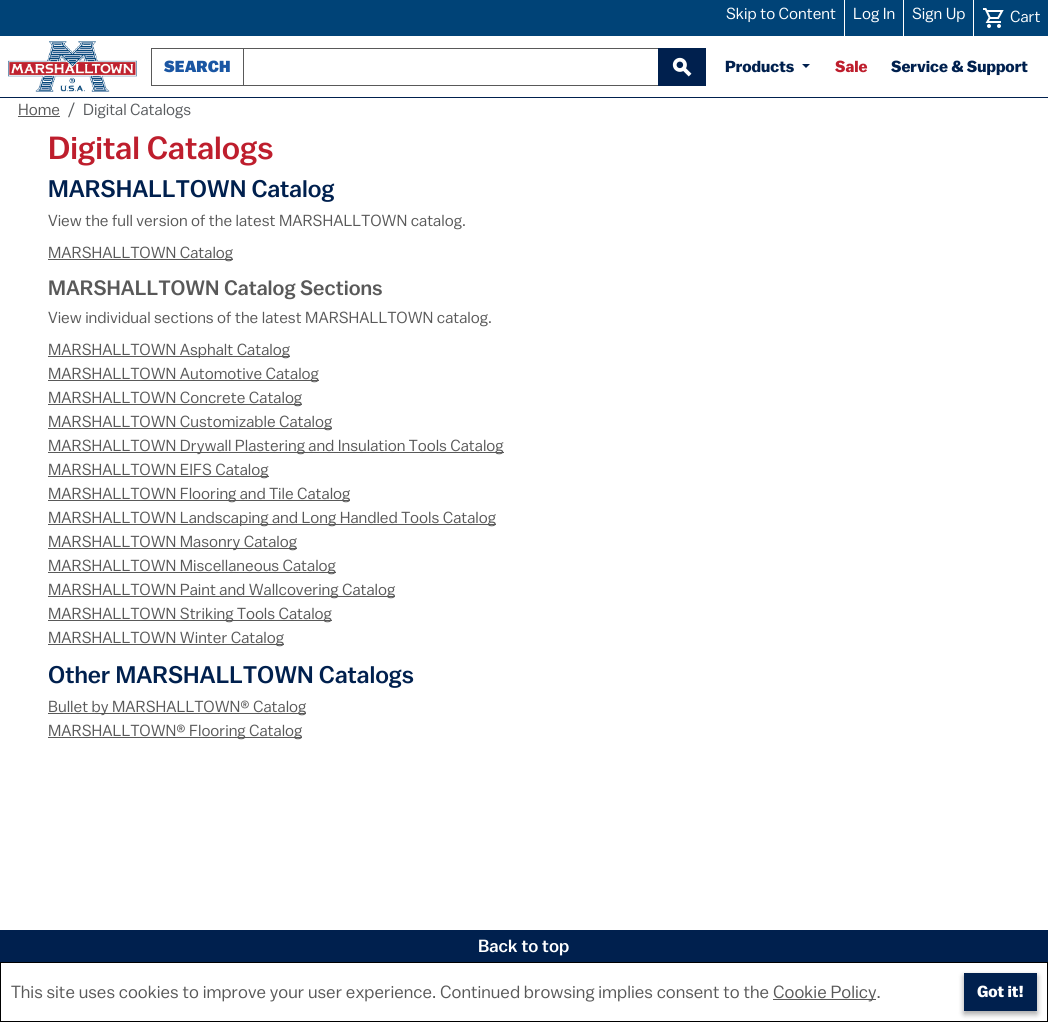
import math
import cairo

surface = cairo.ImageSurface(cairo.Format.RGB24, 1048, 1022)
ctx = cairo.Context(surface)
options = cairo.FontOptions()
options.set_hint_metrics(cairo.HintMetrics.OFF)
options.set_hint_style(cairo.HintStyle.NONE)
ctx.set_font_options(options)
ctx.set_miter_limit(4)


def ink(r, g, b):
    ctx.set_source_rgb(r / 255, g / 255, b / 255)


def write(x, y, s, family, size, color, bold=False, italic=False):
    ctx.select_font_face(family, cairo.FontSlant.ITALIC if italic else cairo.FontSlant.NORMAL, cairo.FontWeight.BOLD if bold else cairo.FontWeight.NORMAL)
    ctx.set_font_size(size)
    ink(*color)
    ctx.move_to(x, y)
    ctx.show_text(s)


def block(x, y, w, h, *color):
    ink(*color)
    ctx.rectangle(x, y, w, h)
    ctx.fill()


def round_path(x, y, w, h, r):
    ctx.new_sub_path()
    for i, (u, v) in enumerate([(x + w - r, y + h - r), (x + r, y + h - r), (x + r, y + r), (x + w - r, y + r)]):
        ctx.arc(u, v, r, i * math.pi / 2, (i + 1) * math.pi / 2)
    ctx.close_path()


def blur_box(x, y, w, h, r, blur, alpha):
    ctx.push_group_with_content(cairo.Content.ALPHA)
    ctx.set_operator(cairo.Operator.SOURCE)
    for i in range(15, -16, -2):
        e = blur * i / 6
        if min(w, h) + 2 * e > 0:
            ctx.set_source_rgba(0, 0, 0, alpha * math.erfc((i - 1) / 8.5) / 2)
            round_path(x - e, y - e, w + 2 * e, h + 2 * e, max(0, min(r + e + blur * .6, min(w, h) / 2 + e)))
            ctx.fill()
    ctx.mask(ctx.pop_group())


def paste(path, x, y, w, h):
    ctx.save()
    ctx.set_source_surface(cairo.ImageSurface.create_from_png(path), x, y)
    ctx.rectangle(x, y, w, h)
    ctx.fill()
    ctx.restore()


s1 = dict(family="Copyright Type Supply", size=16, color=(255, 255, 255))
s2 = dict(family="Copyright Type Supply", size=16, color=(26, 86, 163), bold=True)
s3 = dict(family="Copyright Type Supply SemiBold", size=16, color=(0, 32, 78))
s4 = dict(family="Copyright Type Supply SemiBold", size=16, color=(190, 30, 45))
s5 = dict(family="Copyright Type Supply", size=16, color=(89, 89, 89))
s6 = dict(family="Copyright Type Supply", size=16, color=(89, 92, 95))
s7 = dict(family="Copyright Type Supply Medium", size=32, color=(190, 30, 45))
s8 = dict(family="Copyright Type Supply Medium", size=24, color=(0, 32, 78))
s9 = dict(family="Copyright Type Supply Medium", size=20.75, color=(89, 89, 89))
s10 = dict(family="Copyright Type Supply Medium", size=17.6, color=(255, 255, 255))
s11 = dict(family="Copyright Type Supply", size=17.6, color=(89, 89, 89))
s12 = dict(family="Copyright Type Supply SemiBold", size=16, color=(255, 255, 255))

ink(0, 67, 119)
ctx.paint()
write(726, 19, "Skip to Content", **s1)
block(844, 0, 1, 36, 255, 255, 255)
write(853, 19, "Log In", **s1)
block(903, 0, 1, 36, 255, 255, 255)
write(912, 19, "Sign Up", **s1)
block(973, 0, 1, 36, 255, 255, 255)
paste("pic1.png", 983, 8, 21, 20)
write(1010, 22, "Cart", **s1)
block(0, 36, 1048, 61, 255, 255, 255)
block(0, 97, 1048, 1, 0, 32, 78)
paste("pic2.png", 8, 41, 129, 51)
ctx.rectangle(151.5, 48.5, 92, 37)
ink(89, 89, 89)
ctx.set_line_width(1)
ctx.stroke()
write(164, 72, "SEARCH", **s2)
ctx.rectangle(243.5, 48.5, 415, 37)
ink(89, 89, 89)
ctx.stroke()
block(658, 48, 48, 38, 0, 32, 78)
paste("pic3.png", 672, 57, 20, 20)
write(725, 72, "Products", **s3)
ctx.new_path()
ctx.move_to(802, 64)
ctx.line_to(810, 64)
ctx.line_to(806, 68)
ctx.close_path()
ctx.fill()
write(835, 72, "Sale", **s4)
write(891, 72, "Service & Support", **s3)
block(0, 98, 1048, 832, 255, 255, 255)
write(18, 115, "Home", **s5)
block(18, 116, 42, 1, 89, 89, 89)
write(68, 115, "/", **s6)
write(83, 115, "Digital Catalogs", **s6)
write(48, 159, "Digital Catalogs", **s7)
write(48, 197, "MARSHALLTOWN Catalog", **s8)
write(48, 226, "View the full version of the latest MARSHALLTOWN catalog.", **s5)
block(48, 259, 185, 1, 89, 89, 89)
write(48, 258, "MARSHALLTOWN Catalog", **s5)
write(48, 295, "MARSHALLTOWN Catalog Sections", **s9)
write(48, 323, "View individual sections of the latest MARSHALLTOWN catalog.", **s5)
block(48, 356, 242, 1, 89, 89, 89)
write(48, 355, "MARSHALLTOWN Asphalt Catalog", **s5)
block(48, 380, 271, 1, 89, 89, 89)
write(48, 379, "MARSHALLTOWN Automotive Catalog", **s5)
block(48, 404, 254, 1, 89, 89, 89)
write(48, 403, "MARSHALLTOWN Concrete Catalog", **s5)
block(48, 428, 284, 1, 89, 89, 89)
write(48, 427, "MARSHALLTOWN Customizable Catalog", **s5)
block(48, 452, 456, 1, 89, 89, 89)
write(48, 451, "MARSHALLTOWN Drywall Plastering and Insulation Tools Catalog", **s5)
block(48, 476, 221, 1, 89, 89, 89)
write(48, 475, "MARSHALLTOWN EIFS Catalog", **s5)
block(48, 500, 302, 1, 89, 89, 89)
write(48, 499, "MARSHALLTOWN Flooring and Tile Catalog", **s5)
block(48, 524, 448, 1, 89, 89, 89)
write(48, 523, "MARSHALLTOWN Landscaping and Long Handled Tools Catalog", **s5)
block(48, 548, 249, 1, 89, 89, 89)
write(48, 547, "MARSHALLTOWN Masonry Catalog", **s5)
block(48, 572, 288, 1, 89, 89, 89)
write(48, 571, "MARSHALLTOWN Miscellaneous Catalog", **s5)
block(48, 596, 347, 1, 89, 89, 89)
write(48, 595, "MARSHALLTOWN Paint and Wallcovering Catalog", **s5)
block(48, 620, 284, 1, 89, 89, 89)
write(48, 619, "MARSHALLTOWN Striking Tools Catalog", **s5)
block(48, 644, 236, 1, 89, 89, 89)
write(48, 643, "MARSHALLTOWN Winter Catalog", **s5)
write(48, 683, "Other MARSHALLTOWN Catalogs", **s8)
block(48, 713, 258, 1, 89, 89, 89)
write(48, 712, "Bullet by MARSHALLTOWN® Catalog", **s5)
block(48, 737, 254, 1, 89, 89, 89)
write(48, 736, "MARSHALLTOWN® Flooring Catalog", **s5)
block(0, 930, 1048, 32, 0, 32, 78)
write(478, 952, "Back to top", **s10)
ctx.rectangle(0.5, 962.5, 1047, 59)
ctx.fill_preserve()
ink(0, 0, 0)
ctx.stroke()
write(11, 998, "This site uses cookies to improve your user experience. Continued browsing implies consent to the", **s11)
block(773, 999, 103, 1, 89, 89, 89)
write(773, 998, "Cookie Policy.", **s11)
ink(0, 0, 0)
blur_box(964, 976, 73, 38, 0, 3, 0.23)
blur_box(964, 976, 73, 38, 0, 3, 0.16)
block(964, 973, 73, 38, 0, 32, 78)
write(977, 997, "Got it!", **s12)
surface.write_to_png("screenshot.png")
